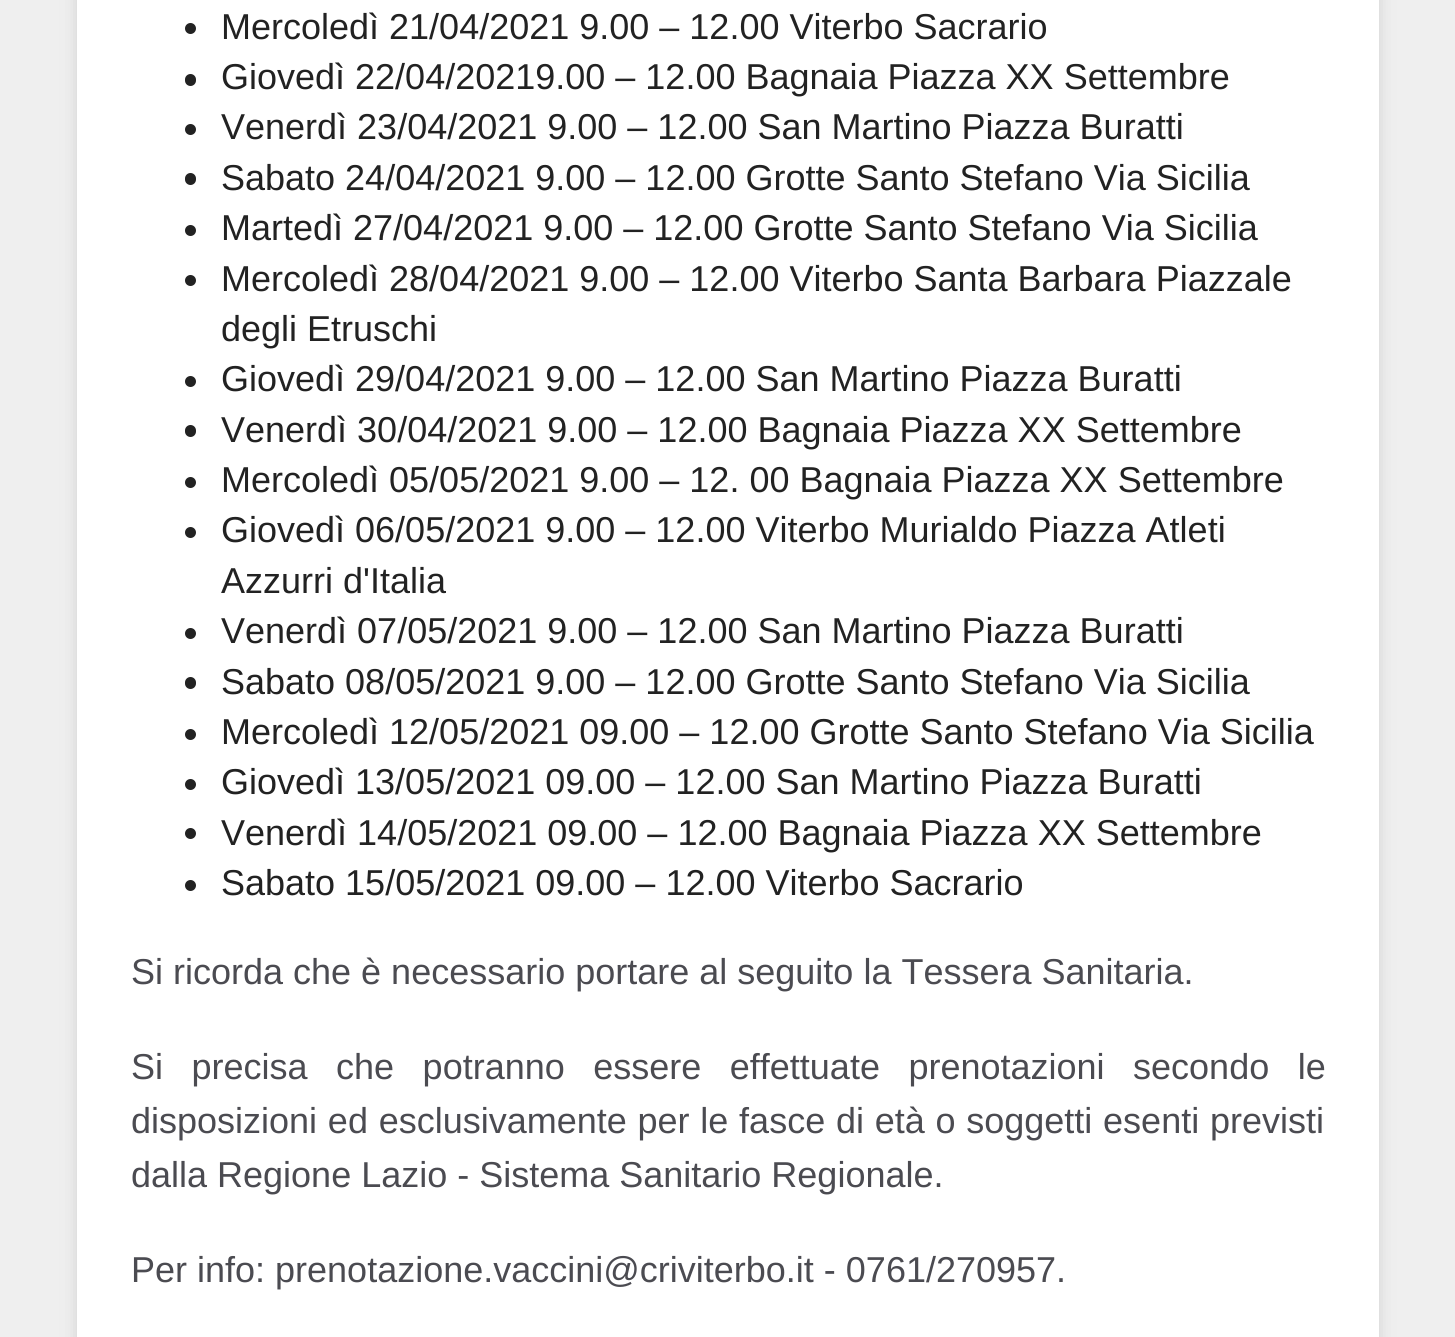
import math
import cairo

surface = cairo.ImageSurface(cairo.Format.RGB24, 1455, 1337)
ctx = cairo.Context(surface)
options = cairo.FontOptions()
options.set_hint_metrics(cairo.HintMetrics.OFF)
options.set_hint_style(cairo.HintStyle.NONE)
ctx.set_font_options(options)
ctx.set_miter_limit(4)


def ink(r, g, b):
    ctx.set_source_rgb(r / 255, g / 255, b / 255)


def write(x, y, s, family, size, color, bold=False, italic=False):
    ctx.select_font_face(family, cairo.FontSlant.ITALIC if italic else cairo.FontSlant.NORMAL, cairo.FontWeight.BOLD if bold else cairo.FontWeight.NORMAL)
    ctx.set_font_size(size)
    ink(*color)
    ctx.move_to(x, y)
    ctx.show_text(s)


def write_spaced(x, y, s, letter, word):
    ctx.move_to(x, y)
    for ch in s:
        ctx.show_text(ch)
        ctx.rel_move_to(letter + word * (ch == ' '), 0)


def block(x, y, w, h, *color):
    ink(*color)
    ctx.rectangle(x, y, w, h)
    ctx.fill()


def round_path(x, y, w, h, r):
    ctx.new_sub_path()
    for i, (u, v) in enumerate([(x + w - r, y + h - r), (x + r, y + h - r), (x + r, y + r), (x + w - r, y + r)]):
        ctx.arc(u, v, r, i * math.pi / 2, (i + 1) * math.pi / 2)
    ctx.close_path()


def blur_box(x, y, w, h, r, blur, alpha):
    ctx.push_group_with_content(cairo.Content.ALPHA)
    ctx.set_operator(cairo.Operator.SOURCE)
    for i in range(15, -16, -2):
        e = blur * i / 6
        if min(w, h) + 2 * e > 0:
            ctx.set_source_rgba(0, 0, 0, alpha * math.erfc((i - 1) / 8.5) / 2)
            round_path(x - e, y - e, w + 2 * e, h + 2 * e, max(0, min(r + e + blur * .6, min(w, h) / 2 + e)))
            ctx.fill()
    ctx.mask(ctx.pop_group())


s1 = dict(family="Liberation Sans", size=36, color=(34, 34, 34))
s2 = dict(family="Liberation Sans", size=36, color=(75, 75, 81))

ink(239, 239, 239)
ctx.paint()
ink(210, 210, 210)
blur_box(77, -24, 1302, 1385, 0, 8, 1)
block(77, 0, 1302, 1337, 255, 255, 255)
ink(34, 34, 34)
ctx.arc(190.5, 28.5, 5.5, 0, 2 * math.pi)
ctx.fill()
write(221, 39, "Mercoledì 21/04/2021 9.00 – 12.00 Viterbo Sacrario", **s1)
round_path(185, 74, 11, 12, 5.5)
ctx.fill()
write(221, 89, "Giovedì 22/04/20219.00 – 12.00 Bagnaia Piazza XX Settembre", **s1)
ctx.new_path()
ctx.arc(190.5, 129.5, 5.5, 0, 2 * math.pi)
ctx.fill()
write(221, 139, "Venerdì 23/04/2021 9.00 – 12.00 San Martino Piazza Buratti", **s1)
round_path(185, 173, 11, 12, 5.5)
ctx.fill()
write(221, 190, "Sabato 24/04/2021 9.00 – 12.00 Grotte Santo Stefano Via Sicilia", **s1)
ctx.new_path()
ctx.arc(190.5, 230.5, 5.5, 0, 2 * math.pi)
ctx.fill()
write(221, 240, "Martedì 27/04/2021 9.00 – 12.00 Grotte Santo Stefano Via Sicilia", **s1)
ctx.new_path()
ctx.arc(190.5, 280.5, 5.5, 0, 2 * math.pi)
ctx.fill()
write(221, 291, "Mercoledì 28/04/2021 9.00 – 12.00 Viterbo Santa Barbara Piazzale", **s1)
write(221, 341, "degli Etruschi", **s1)
ctx.new_path()
ctx.arc(190.5, 381.5, 5.5, 0, 2 * math.pi)
ctx.fill()
write(221, 391, "Giovedì 29/04/2021 9.00 – 12.00 San Martino Piazza Buratti", **s1)
round_path(185, 425, 11, 12, 5.5)
ctx.fill()
write(221, 442, "Venerdì 30/04/2021 9.00 – 12.00 Bagnaia Piazza XX Settembre", **s1)
ctx.new_path()
ctx.arc(190.5, 482.5, 5.5, 0, 2 * math.pi)
ctx.fill()
write(221, 492, "Mercoledì 05/05/2021 9.00 – 12. 00 Bagnaia Piazza XX Settembre", **s1)
ctx.new_path()
ctx.arc(190.5, 532.5, 5.5, 0, 2 * math.pi)
ctx.fill()
write(221, 542, "Giovedì 06/05/2021 9.00 – 12.00 Viterbo Murialdo Piazza Atleti", **s1)
write(221, 593, "Azzurri d'Italia", **s1)
ctx.new_path()
ctx.arc(190.5, 633.5, 5.5, 0, 2 * math.pi)
ctx.fill()
write(221, 643, "Venerdì 07/05/2021 9.00 – 12.00 San Martino Piazza Buratti", **s1)
round_path(185, 677, 11, 12, 5.5)
ctx.fill()
write(221, 694, "Sabato 08/05/2021 9.00 – 12.00 Grotte Santo Stefano Via Sicilia", **s1)
ctx.new_path()
ctx.arc(190.5, 734.5, 5.5, 0, 2 * math.pi)
ctx.fill()
write(221, 744, "Mercoledì 12/05/2021 09.00 – 12.00 Grotte Santo Stefano Via Sicilia", **s1)
ctx.new_path()
ctx.arc(190.5, 784.5, 5.5, 0, 2 * math.pi)
ctx.fill()
write(221, 794, "Giovedì 13/05/2021 09.00 – 12.00 San Martino Piazza Buratti", **s1)
ctx.new_path()
ctx.arc(190.5, 833.5, 5.5, 0, 2 * math.pi)
ctx.fill()
write(221, 845, "Venerdì 14/05/2021 09.00 – 12.00 Bagnaia Piazza XX Settembre", **s1)
ctx.new_path()
ctx.arc(190.5, 885.5, 5.5, 0, 2 * math.pi)
ctx.fill()
write(221, 895, "Sabato 15/05/2021 09.00 – 12.00 Viterbo Sacrario", **s1)
write(131, 984, "Si ricorda che è necessario portare al seguito la Tessera Sanitaria.", **s2)
write_spaced(131, 1079, "Si precisa che potranno essere effettuate prenotazioni secondo le", 0, 18.5)
write_spaced(131, 1133, "disposizioni ed esclusivamente per le fasce di età o soggetti esenti previsti", 0, 0.75)
write(131, 1187, "dalla Regione Lazio - Sistema Sanitario Regionale.", **s2)
write(131, 1282, "Per info: prenotazione.vaccini@criviterbo.it - 0761/270957.", **s2)
surface.write_to_png("screenshot.png")
